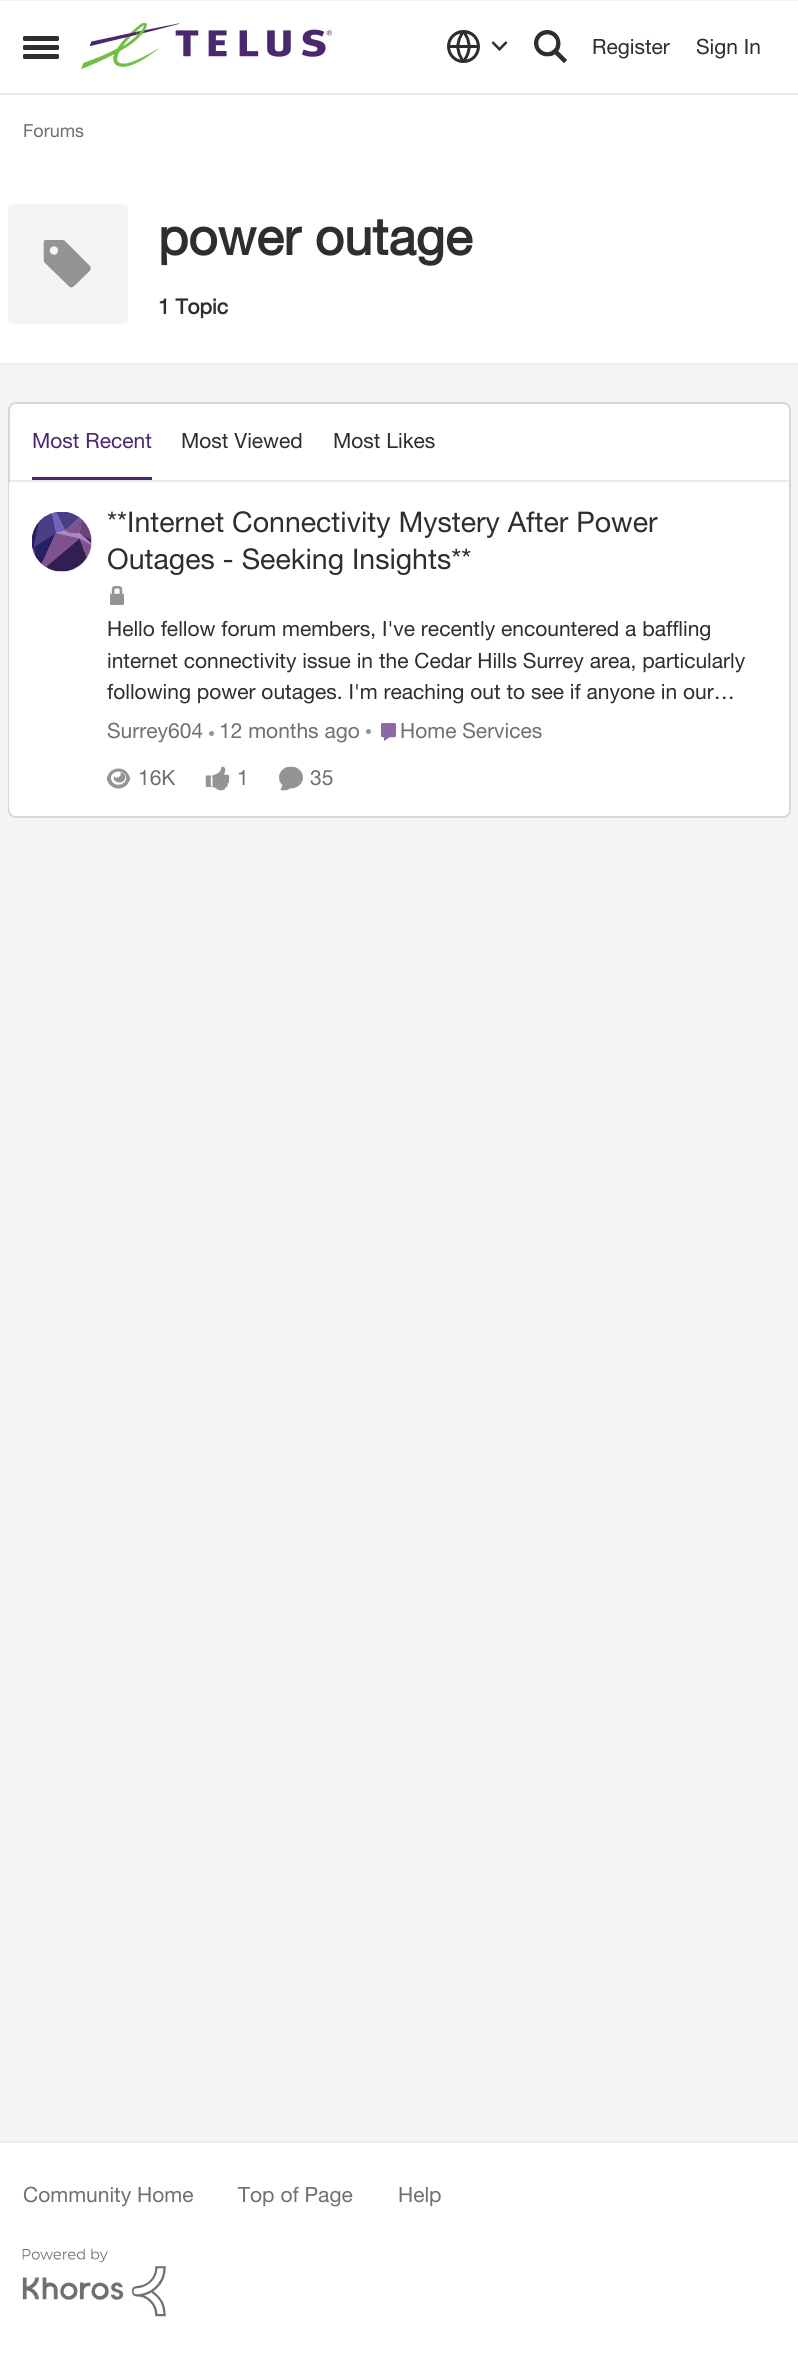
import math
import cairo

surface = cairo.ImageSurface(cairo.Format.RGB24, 798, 2354)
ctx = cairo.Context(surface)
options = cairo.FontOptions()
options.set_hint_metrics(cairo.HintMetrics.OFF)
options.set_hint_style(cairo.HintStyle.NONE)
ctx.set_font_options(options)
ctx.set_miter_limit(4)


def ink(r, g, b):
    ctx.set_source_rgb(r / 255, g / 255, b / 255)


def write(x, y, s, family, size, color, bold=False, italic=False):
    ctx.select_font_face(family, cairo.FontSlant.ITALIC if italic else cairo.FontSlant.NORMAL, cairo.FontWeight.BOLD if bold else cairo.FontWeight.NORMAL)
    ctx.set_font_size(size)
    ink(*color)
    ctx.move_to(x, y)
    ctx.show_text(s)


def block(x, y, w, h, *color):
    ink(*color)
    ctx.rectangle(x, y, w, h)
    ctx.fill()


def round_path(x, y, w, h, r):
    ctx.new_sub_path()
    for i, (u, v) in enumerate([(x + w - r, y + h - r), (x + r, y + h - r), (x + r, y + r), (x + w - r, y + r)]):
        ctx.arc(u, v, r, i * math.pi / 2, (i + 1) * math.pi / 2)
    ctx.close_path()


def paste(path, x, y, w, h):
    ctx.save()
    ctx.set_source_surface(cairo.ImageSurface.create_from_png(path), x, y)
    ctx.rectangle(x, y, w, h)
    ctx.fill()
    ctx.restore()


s1 = dict(family="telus", size=21, color=(44, 46, 48))
s2 = dict(family="telus", size=18, color=(112, 112, 112))
s3 = dict(family="telus", size=51, color=(44, 46, 48), bold=True)
s4 = dict(family="telus", size=21, color=(44, 46, 48), bold=True)
s5 = dict(family="telus", size=21, color=(75, 40, 109))
s6 = dict(family="telus", size=28.5, color=(44, 46, 48))
s7 = dict(family="telus", size=21, color=(112, 112, 112))

ink(244, 244, 247)
ctx.paint()
block(0, 1, 798, 362, 255, 255, 255)
block(0, 93, 798, 2, 235, 235, 235)
block(0, 0, 798, 1, 242, 243, 251)
ink(44, 46, 48)
round_path(23, 36, 36, 5, 1.5)
ctx.fill()
round_path(23, 45, 36, 5, 1.5)
ctx.fill()
round_path(23, 54, 36, 5, 1.5)
ctx.fill()
paste("pic1.png", 81, 23, 251, 47)
paste("pic2.png", 447, 30, 33, 33)
paste("pic3.png", 491, 41, 17, 10)
paste("pic4.png", 534, 30, 33, 34)
write(592, 54, "Register", **s1)
write(696, 54, "Sign In", **s1)
write(23, 137, "Forums", **s2)
block(0, 363, 798, 2, 235, 235, 235)
ink(244, 244, 244)
round_path(8, 204, 120, 120, 5)
ctx.fill()
paste("pic5.png", 43, 240, 48, 48)
write(158, 255, "power outage", **s3)
write(158, 314, "1 Topic", **s4)
ink(255, 255, 255)
round_path(8, 402, 783, 416, 8)
ctx.fill()
round_path(9, 403, 781, 414, 7)
ctx.set_source_rgba(0, 0, 0, 0.16)
ctx.stroke()
ctx.set_source_rgba(0, 0, 0, 0.08)
ctx.rectangle(9, 480, 780, 2)
ctx.fill()
write(32, 448, "Most Recent", **s5)
block(32, 477, 120, 3, 75, 40, 109)
write(181, 448, "Most Viewed", **s1)
write(333, 448, "Most Likes", **s1)
ink(255, 255, 255)
ctx.new_path()
ctx.move_to(9, 482)
ctx.line_to(789, 482)
ctx.line_to(789, 808)
ctx.curve_to(789, 812.5, 785.5, 816, 781, 816)
ctx.line_to(17, 816)
ctx.curve_to(12.5, 816, 9, 812.5, 9, 808)
ctx.close_path()
ctx.fill()
ink(217, 217, 217)
ctx.arc(62, 542, 30, 0, 2 * math.pi)
ctx.fill()
paste("pic6.png", 32, 512, 60, 60)
write(107, 532, "**Internet Connectivity Mystery After Power", **s6)
write(107, 569, "Outages - Seeking Insights**", **s6)
paste("pic7.png", 110, 586, 14, 19)
write(107, 636, "Hello fellow forum members, I've recently encountered a baffling", **s1)
write(107, 668, "internet connectivity issue in the Cedar Hills Surrey area, particularly", **s1)
write(107, 699, "following power outages. I'm reaching out to see if anyone in our…", **s1)
write(107, 738, "Surrey604", **s7)
ink(148, 148, 148)
ctx.new_path()
ctx.arc(211.5, 733.5, 2.5, 0, 2 * math.pi)
ctx.fill()
write(219, 738, "12 months ago", **s7)
ink(148, 148, 148)
ctx.new_path()
ctx.arc(368.5, 731.5, 2.5, 0, 2 * math.pi)
ctx.fill()
paste("pic8.png", 381, 723, 15, 18)
write(400, 738, "Home Services", **s7)
paste("pic9.png", 106, 768, 25, 21)
write(138, 785, "16K", **s7)
paste("pic10.png", 205, 766, 25, 25)
write(237, 785, "1", **s7)
paste("pic11.png", 279, 766, 24, 25)
write(310, 785, "35", **s7)
block(0, 2143, 798, 211, 255, 255, 255)
block(0, 2141, 798, 2, 235, 235, 235)
write(23, 2202, "Community Home", **s7)
write(238, 2202, "Top of Page", **s7)
write(398, 2202, "Help", **s7)
paste("pic12.png", 22, 2248, 144, 69)
surface.write_to_png("screenshot.png")
